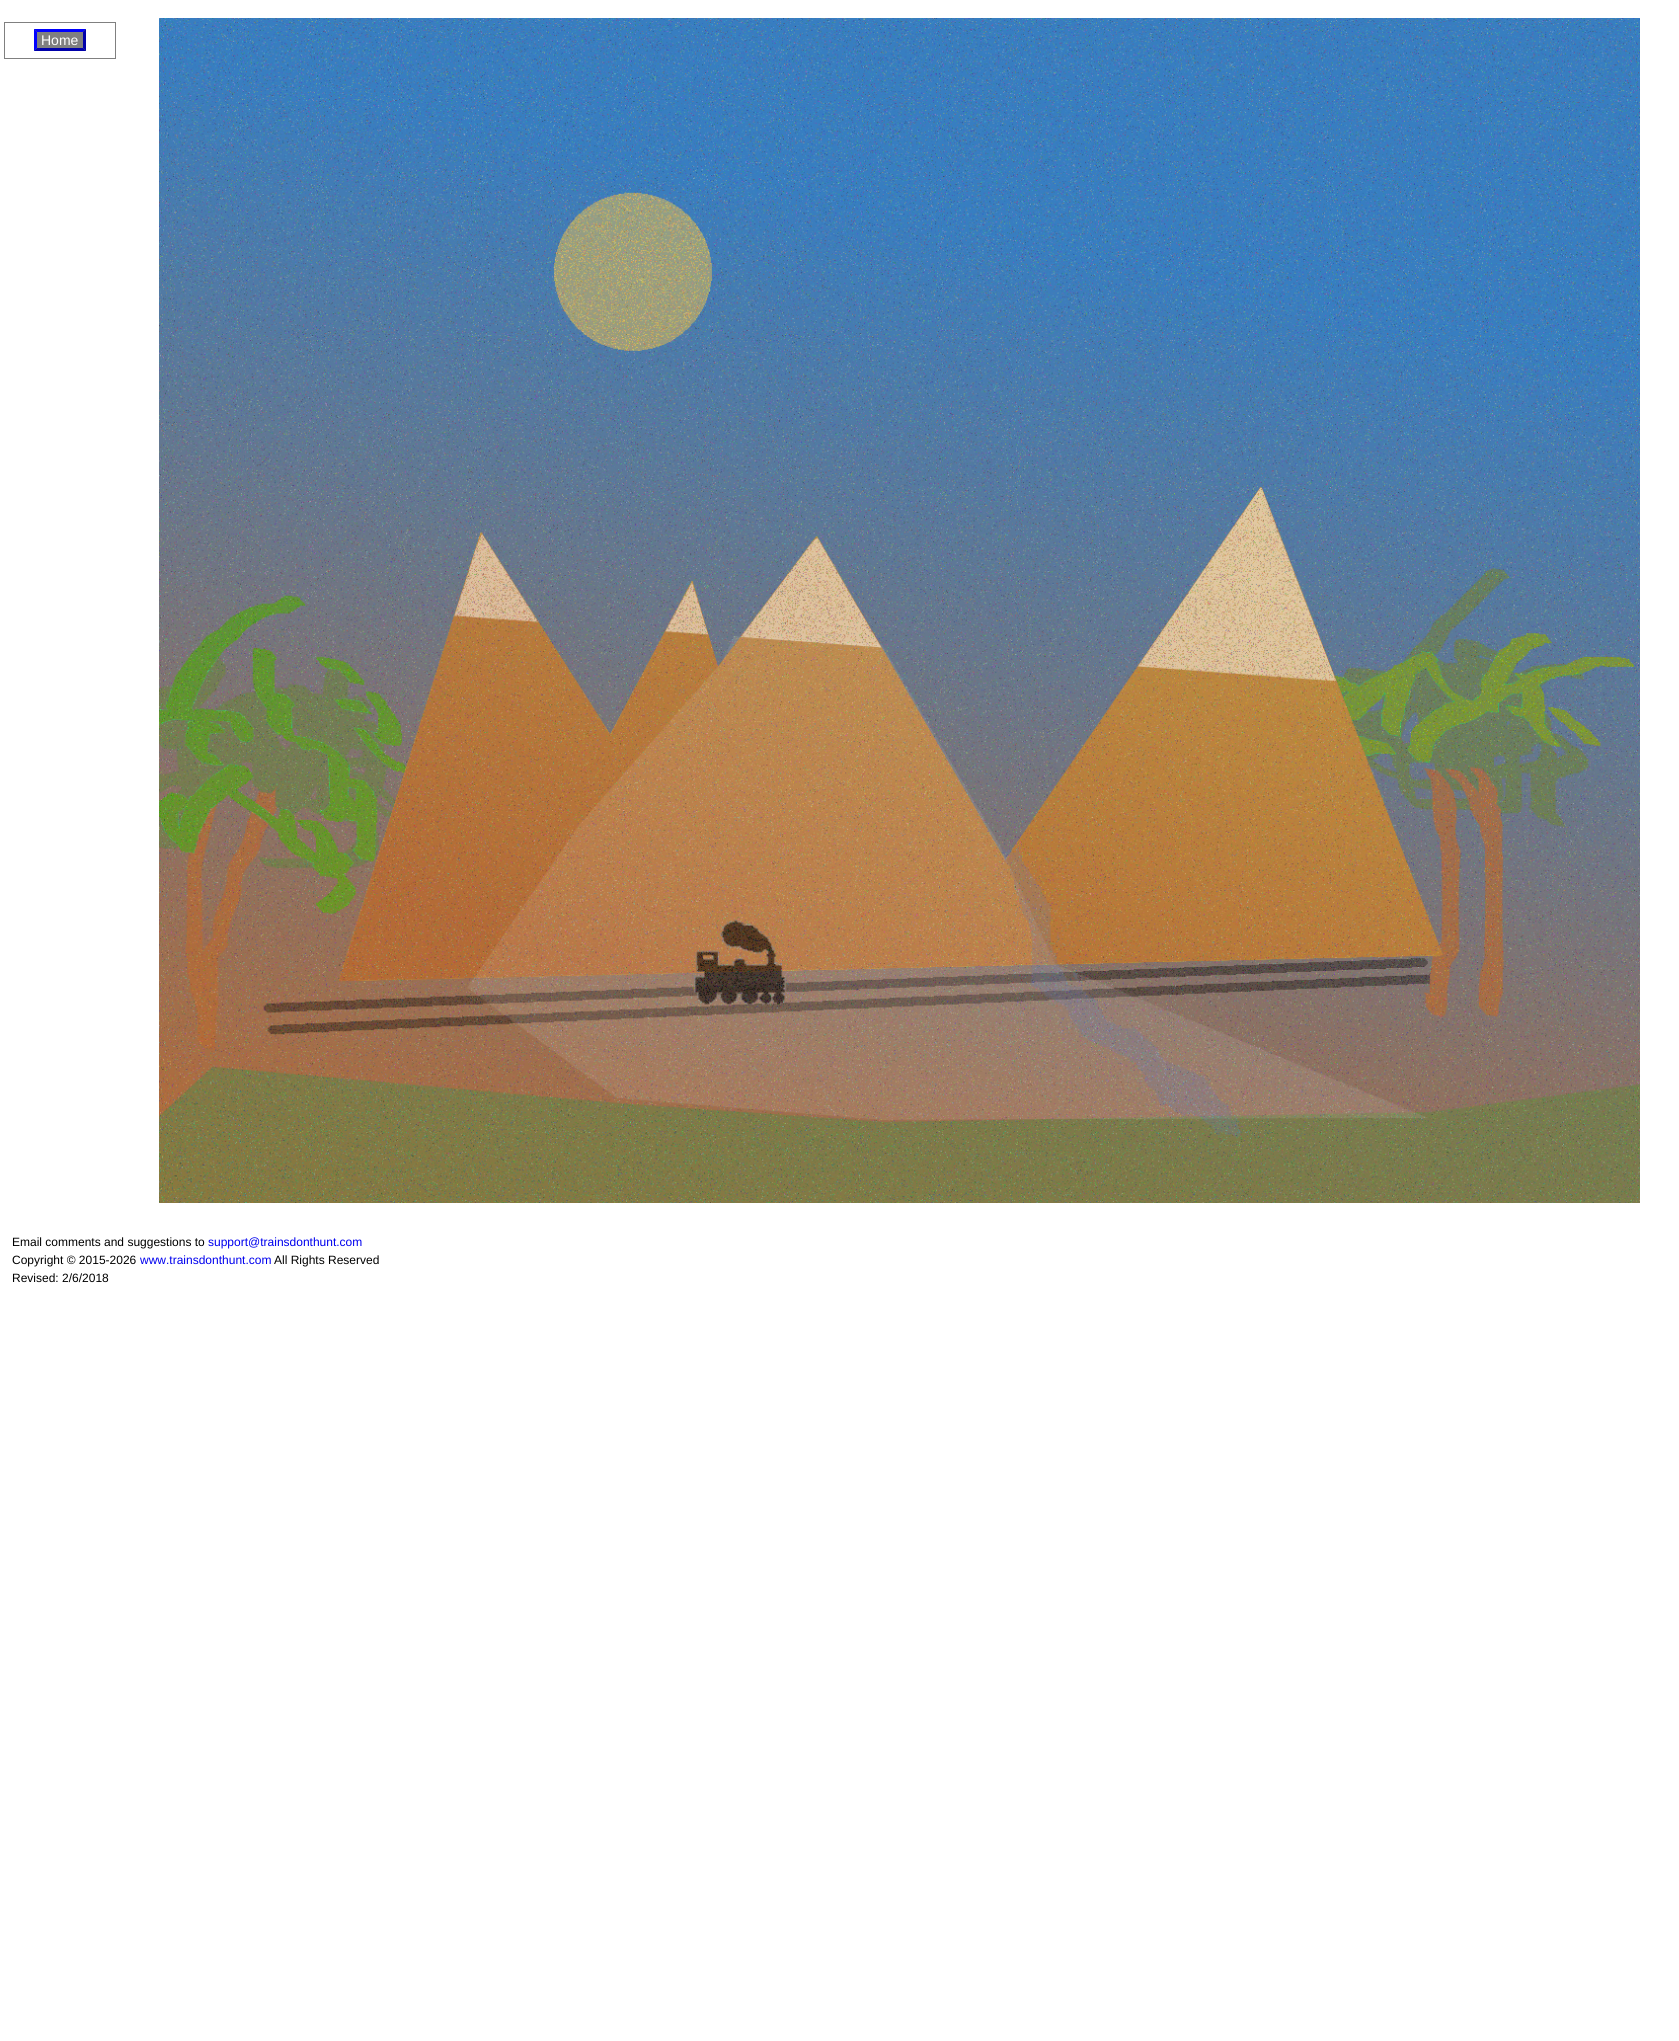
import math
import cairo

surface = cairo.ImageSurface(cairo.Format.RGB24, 1679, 2041)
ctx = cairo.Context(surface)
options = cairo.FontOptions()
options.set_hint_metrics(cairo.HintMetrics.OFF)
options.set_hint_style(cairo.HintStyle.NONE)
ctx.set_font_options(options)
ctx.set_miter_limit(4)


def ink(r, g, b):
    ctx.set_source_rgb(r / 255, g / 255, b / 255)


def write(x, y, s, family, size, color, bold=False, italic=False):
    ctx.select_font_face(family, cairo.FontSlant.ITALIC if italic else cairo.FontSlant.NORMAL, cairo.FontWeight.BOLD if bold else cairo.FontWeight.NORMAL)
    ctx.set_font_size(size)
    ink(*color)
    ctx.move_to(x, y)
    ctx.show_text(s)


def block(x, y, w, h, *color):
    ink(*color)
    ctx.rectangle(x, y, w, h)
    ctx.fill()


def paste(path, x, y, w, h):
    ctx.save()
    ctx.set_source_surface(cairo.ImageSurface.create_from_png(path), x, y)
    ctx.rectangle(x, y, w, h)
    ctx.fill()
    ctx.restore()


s1 = dict(family="Liberation Sans", size=14, color=(255, 255, 255))
s2 = dict(family="Liberation Sans", size=12, color=(0, 0, 0))
s3 = dict(family="Liberation Sans", size=12, color=(0, 0, 238))

ink(255, 255, 255)
ctx.paint()
ctx.rectangle(4.5, 22.5, 111, 36)
ink(128, 128, 128)
ctx.set_line_width(1)
ctx.stroke()
block(34, 29, 52, 22, 128, 128, 128)
write(41, 45, "Home", **s1)
ink(0, 0, 255)
ctx.new_path()
ctx.move_to(34, 29)
ctx.line_to(86, 29)
ctx.line_to(83, 32)
ctx.line_to(37, 32)
ctx.close_path()
ctx.fill()
ink(0, 0, 170)
ctx.new_path()
ctx.move_to(86, 29)
ctx.line_to(86, 51)
ctx.line_to(83, 48)
ctx.line_to(83, 32)
ctx.close_path()
ctx.fill()
ctx.new_path()
ctx.move_to(86, 51)
ctx.line_to(34, 51)
ctx.line_to(37, 48)
ctx.line_to(83, 48)
ctx.close_path()
ctx.fill()
ink(0, 0, 255)
ctx.new_path()
ctx.move_to(34, 51)
ctx.line_to(34, 29)
ctx.line_to(37, 32)
ctx.line_to(37, 48)
ctx.close_path()
ctx.fill()
paste("pic1.png", 159, 18, 1481, 1185)
write(12, 1246, "Email comments and suggestions to", **s2)
write(208, 1246, "support@trainsdonthunt.com", **s3)
write(12, 1264, "Copyright © 2015-2026", **s2)
write(140, 1264, "www.trainsdonthunt.com", **s3)
write(274, 1264, "All Rights Reserved", **s2)
write(12, 1282, "Revised: 2/6/2018", **s2)
surface.write_to_png("screenshot.png")
